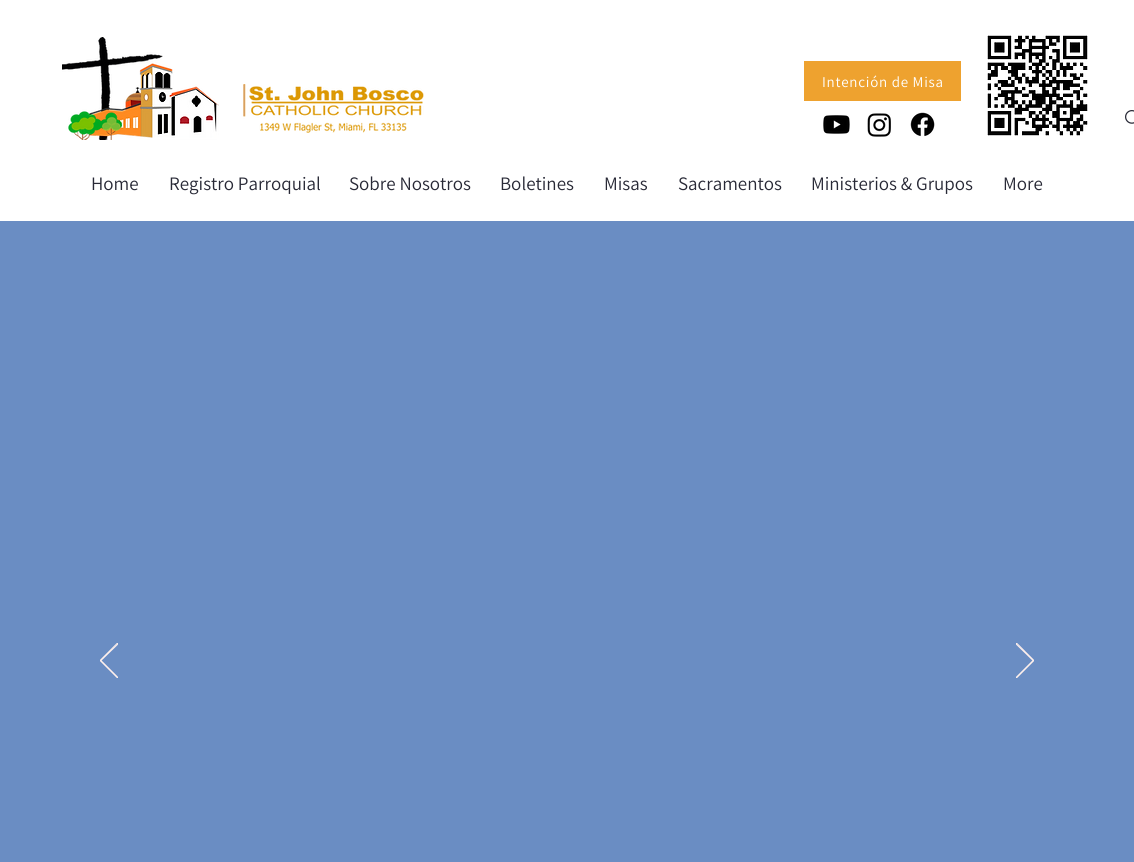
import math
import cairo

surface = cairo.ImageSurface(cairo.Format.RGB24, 1134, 862)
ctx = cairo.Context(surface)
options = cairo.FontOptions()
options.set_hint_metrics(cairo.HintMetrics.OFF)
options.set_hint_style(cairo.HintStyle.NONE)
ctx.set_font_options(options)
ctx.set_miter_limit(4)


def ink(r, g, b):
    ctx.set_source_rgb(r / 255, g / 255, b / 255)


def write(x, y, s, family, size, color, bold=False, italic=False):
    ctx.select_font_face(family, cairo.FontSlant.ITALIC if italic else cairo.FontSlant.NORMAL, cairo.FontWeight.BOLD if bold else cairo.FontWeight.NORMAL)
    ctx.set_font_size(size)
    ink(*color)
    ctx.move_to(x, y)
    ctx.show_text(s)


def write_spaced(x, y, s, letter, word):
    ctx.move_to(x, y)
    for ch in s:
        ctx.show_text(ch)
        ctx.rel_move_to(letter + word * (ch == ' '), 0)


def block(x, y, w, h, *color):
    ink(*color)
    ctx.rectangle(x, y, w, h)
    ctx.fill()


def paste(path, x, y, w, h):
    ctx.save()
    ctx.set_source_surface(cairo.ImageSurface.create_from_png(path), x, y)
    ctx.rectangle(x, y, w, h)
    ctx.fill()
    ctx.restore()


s1 = dict(family="Assistant", size=19, color=(40, 41, 54))

ink(255, 255, 255)
ctx.paint()
paste("pic1.png", 62, 37, 157, 103)
block(804, 61, 157, 40, 238, 162, 47)
ctx.select_font_face("Assistant")
ctx.set_font_size(15)
ink(255, 255, 255)
write_spaced(822, 87, "Intención de Misa", 0.75, 0)
paste("pic2.png", 987, 35, 101, 101)
paste("pic3.png", 243, 84, 181, 49)
paste("pic4.png", 823, 115, 27, 19)
paste("pic5.png", 867, 113, 24, 24)
paste("pic6.png", 910, 112, 25, 25)
paste("pic7.png", 1125, 110, 9, 14)
write(91, 190, "Home", **s1)
write(169, 190, "Registro Parroquial", **s1)
write(349, 190, "Sobre Nosotros", **s1)
write(500, 190, "Boletines", **s1)
write(604, 190, "Misas", **s1)
write(678, 190, "Sacramentos", **s1)
write(811, 190, "Ministerios & Grupos", **s1)
write(1003, 190, "More", **s1)
block(0, 221, 1134, 641, 106, 141, 195)
ctx.save()
ctx.rectangle(100, 643, 18, 35)
ctx.clip()
ctx.new_path()
ctx.move_to(117.5, 678)
ctx.line_to(100, 660.5)
ctx.line_to(117.5, 643)
ctx.line_to(118, 644)
ctx.line_to(101, 660.5)
ctx.line_to(118, 677.5)
ctx.close_path()
ink(255, 240, 236)
ctx.set_line_width(0.9)
ctx.stroke()
ctx.restore()
ctx.save()
ctx.rectangle(1016, 643, 18, 35)
ctx.clip()
ctx.new_path()
ctx.move_to(1016.5, 678)
ctx.line_to(1034, 660.5)
ctx.line_to(1016.5, 643)
ctx.line_to(1016, 644)
ctx.line_to(1033, 660.5)
ctx.line_to(1016, 677.5)
ctx.close_path()
ink(255, 240, 236)
ctx.set_line_width(0.9)
ctx.stroke()
ctx.restore()
surface.write_to_png("screenshot.png")
